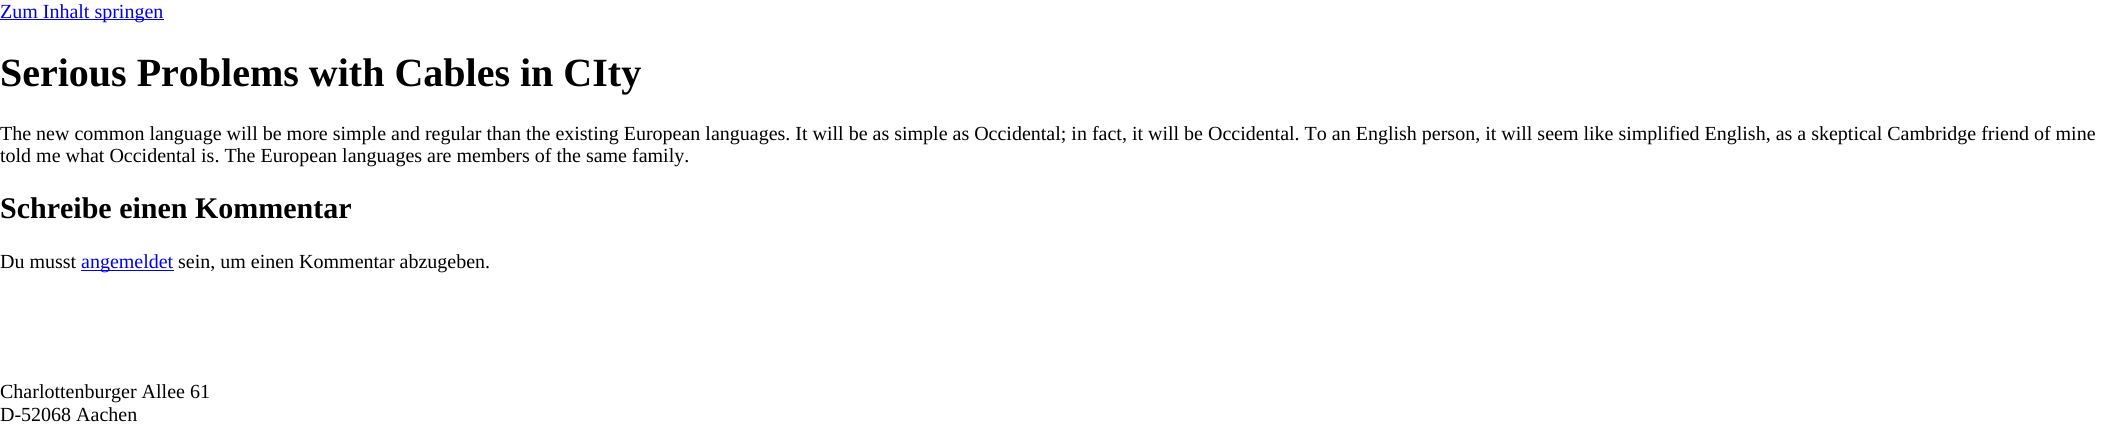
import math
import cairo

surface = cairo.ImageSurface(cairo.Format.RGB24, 2112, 432)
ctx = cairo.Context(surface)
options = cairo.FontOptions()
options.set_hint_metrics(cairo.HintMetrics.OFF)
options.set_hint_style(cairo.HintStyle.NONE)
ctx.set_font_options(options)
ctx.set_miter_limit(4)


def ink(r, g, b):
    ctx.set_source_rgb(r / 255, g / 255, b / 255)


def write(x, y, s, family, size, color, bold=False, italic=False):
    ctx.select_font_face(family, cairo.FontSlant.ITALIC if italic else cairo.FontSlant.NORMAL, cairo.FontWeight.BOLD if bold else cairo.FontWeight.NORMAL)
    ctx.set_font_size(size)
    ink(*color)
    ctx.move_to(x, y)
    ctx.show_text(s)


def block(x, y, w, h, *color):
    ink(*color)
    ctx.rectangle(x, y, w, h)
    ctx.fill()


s1 = dict(family="Liberation Serif", size=20, color=(0, 0, 238))
s2 = dict(family="Liberation Serif", size=40, color=(0, 0, 0), bold=True)
s3 = dict(family="Liberation Serif", size=20, color=(0, 0, 0))
s4 = dict(family="Liberation Serif", size=30, color=(0, 0, 0), bold=True)

ink(255, 255, 255)
ctx.paint()
block(0, 19, 164, 1, 0, 0, 238)
write(0, 18, "Zum Inhalt springen", **s1)
write(0, 86, "Serious Problems with Cables in CIty", **s2)
write(0, 140, "The new common language will be more simple and regular than the existing European languages. It will be as simple as Occidental; in fact, it will be Occidental. To an English person, it will seem like simplified English, as a skeptical Cambridge friend of mine", **s3)
write(0, 162, "told me what Occidental is. The European languages are members of the same family.", **s3)
write(0, 218, "Schreibe einen Kommentar", **s4)
write(0, 268, "Du musst", **s3)
block(81, 270, 93, 1, 0, 0, 238)
write(81, 268, "angemeldet", **s1)
write(178, 268, "sein, um einen Kommentar abzugeben.", **s3)
write(0, 398, "Charlottenburger Allee 61", **s3)
write(0, 421, "D-52068 Aachen", **s3)
surface.write_to_png("screenshot.png")
